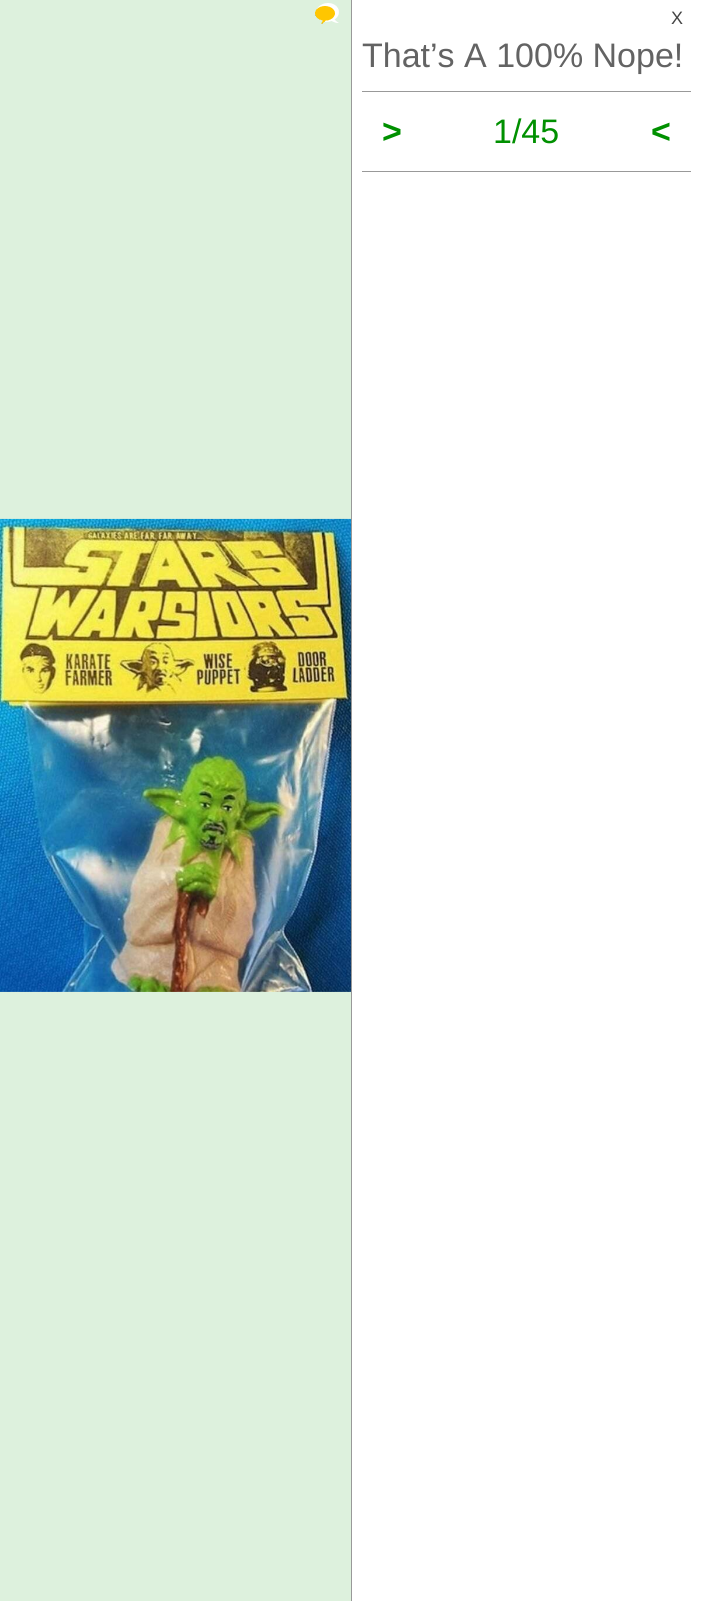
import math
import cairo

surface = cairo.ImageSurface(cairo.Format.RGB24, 701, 1601)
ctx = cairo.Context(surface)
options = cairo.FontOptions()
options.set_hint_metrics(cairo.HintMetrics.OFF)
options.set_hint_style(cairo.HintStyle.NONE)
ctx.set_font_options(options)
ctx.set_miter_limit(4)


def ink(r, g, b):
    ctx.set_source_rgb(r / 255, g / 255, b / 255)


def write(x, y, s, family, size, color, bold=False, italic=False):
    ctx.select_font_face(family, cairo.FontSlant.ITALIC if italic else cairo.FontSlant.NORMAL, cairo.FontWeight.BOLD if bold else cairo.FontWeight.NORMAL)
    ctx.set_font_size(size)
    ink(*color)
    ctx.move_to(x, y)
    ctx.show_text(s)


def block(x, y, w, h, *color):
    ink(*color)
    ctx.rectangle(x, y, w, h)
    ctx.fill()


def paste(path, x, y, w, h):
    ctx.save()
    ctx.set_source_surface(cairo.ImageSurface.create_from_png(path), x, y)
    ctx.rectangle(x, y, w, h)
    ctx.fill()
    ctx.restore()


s1 = dict(family="Liberation Sans", size=18, color=(68, 68, 68))
s2 = dict(family="Liberation Sans", size=34, color=(99, 99, 99))
s3 = dict(family="Liberation Sans", size=34, color=(0, 144, 0), bold=True)
s4 = dict(family="Liberation Sans", size=34, color=(0, 144, 0))

ink(221, 241, 221)
ctx.paint()
paste("pic1.png", 315, 3, 24, 21)
paste("pic2.png", 0, 518, 351, 474)
block(352, 0, 349, 1601, 255, 255, 255)
block(351, 0, 1, 1601, 153, 153, 153)
write(671, 24, "X", **s1)
write(362, 67, "That’s A 100% Nope!", **s2)
block(362, 91, 329, 1, 153, 153, 153)
block(362, 171, 329, 1, 153, 153, 153)
write(382, 143, ">", **s3)
write(493, 143, "1/45", **s4)
write(651, 143, "<", **s3)
surface.write_to_png("screenshot.png")
